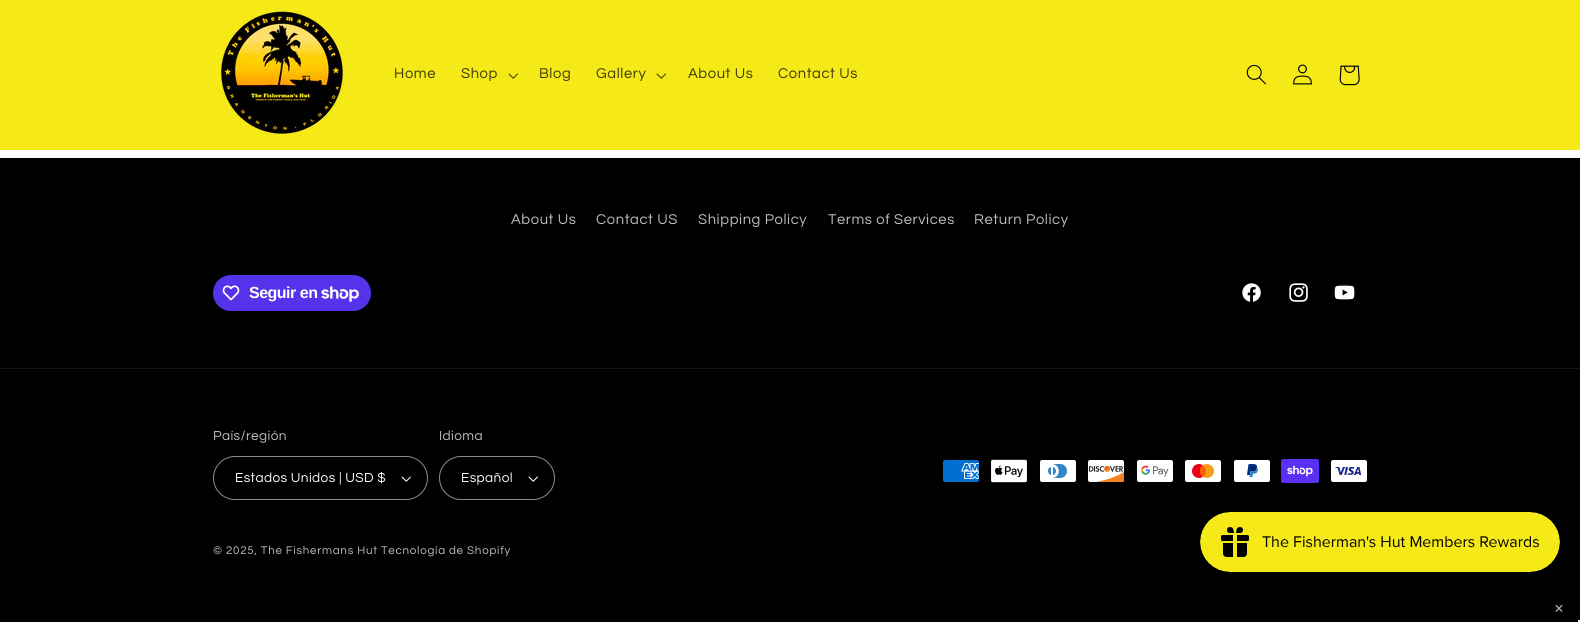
import math
import cairo

surface = cairo.ImageSurface(cairo.Format.RGB24, 1580, 622)
ctx = cairo.Context(surface)
options = cairo.FontOptions()
options.set_hint_metrics(cairo.HintMetrics.OFF)
options.set_hint_style(cairo.HintStyle.NONE)
ctx.set_font_options(options)
ctx.set_miter_limit(4)


def ink(r, g, b):
    ctx.set_source_rgb(r / 255, g / 255, b / 255)


def write_spaced(x, y, s, letter, word):
    ctx.move_to(x, y)
    for ch in s:
        ctx.show_text(ch)
        ctx.rel_move_to(letter + word * (ch == ' '), 0)


def block(x, y, w, h, *color):
    ink(*color)
    ctx.rectangle(x, y, w, h)
    ctx.fill()


def round_path(x, y, w, h, r):
    ctx.new_sub_path()
    for i, (u, v) in enumerate([(x + w - r, y + h - r), (x + r, y + h - r), (x + r, y + r), (x + w - r, y + r)]):
        ctx.arc(u, v, r, i * math.pi / 2, (i + 1) * math.pi / 2)
    ctx.close_path()


def paste(path, x, y, w, h):
    ctx.save()
    ctx.set_source_surface(cairo.ImageSurface.create_from_png(path), x, y)
    ctx.rectangle(x, y, w, h)
    ctx.fill()
    ctx.restore()


ink(0, 0, 0)
ctx.paint()
block(0, 0, 1580, 150, 245, 233, 23)
paste("pic1.png", 221, 11, 122, 123)
ctx.select_font_face("Questrial")
ctx.set_font_size(14.75)
ink(61, 58, 6)
write_spaced(394, 78, "Home", 0.6, 0)
write_spaced(461, 78, "Shop", 0.6, 0)
paste("pic2.png", 508, 73, 10, 6)
write_spaced(539, 78, "Blog", 0.6, 0)
write_spaced(596, 78, "Gallery", 0.6, 0)
paste("pic2.png", 656, 73, 10, 6)
write_spaced(688, 78, "About Us", 0.6, 0)
write_spaced(778, 78, "Contact Us", 0.6, 0)
paste("pic3.png", 1246, 64, 20, 21)
paste("pic4.png", 1293, 64, 19, 21)
paste("pic5.png", 1339, 65, 21, 21)
block(0, 150, 1580, 8, 255, 255, 255)
ink(191, 191, 191)
write_spaced(511, 224, "About Us", 0.6, 0)
write_spaced(596, 224, "Contact US", 0.6, 0)
write_spaced(698, 224, "Shipping Policy", 0.6, 0)
write_spaced(828, 224, "Terms of Services", 0.6, 0)
write_spaced(974, 224, "Return Policy", 0.6, 0)
ink(84, 51, 235)
round_path(213, 275, 158, 36, 18)
ctx.fill()
paste("pic6.png", 222, 285, 18, 16)
ctx.select_font_face("Liberation Sans", cairo.FontSlant.NORMAL, cairo.FontWeight.BOLD)
ctx.set_font_size(16)
ink(255, 255, 255)
write_spaced(249, 298, "Seguir en", -0.5, 0)
paste("pic7.png", 321, 286, 38, 16)
paste("pic8.png", 1242, 283, 19, 19)
paste("pic9.png", 1289, 283, 19, 19)
paste("pic10.png", 1334, 285, 21, 15)
block(0, 368, 1580, 1, 20, 20, 20)
ctx.select_font_face("Questrial")
ctx.set_font_size(13.6)
ink(191, 191, 191)
write_spaced(213, 440, "País/región", 0.4, 0)
paste("pic11.png", 401, 476, 10, 6)
round_path(213.5, 456.5, 214, 43, 21.5)
ink(140, 140, 140)
ctx.set_line_width(1)
ctx.stroke()
ink(255, 255, 255)
write_spaced(235, 482, "Estados Unidos | USD $", 0.4, 0)
ink(191, 191, 191)
write_spaced(439, 440, "Idioma", 0.4, 0)
paste("pic11.png", 528, 476, 10, 6)
round_path(439.5, 456.5, 115, 43, 21.5)
ink(140, 140, 140)
ctx.stroke()
ink(255, 255, 255)
write_spaced(461, 482, "Español", 0.4, 0)
paste("pic12.png", 943, 460, 36, 22)
paste("pic13.png", 991, 459, 36, 24)
paste("pic14.png", 1040, 460, 36, 22)
paste("pic15.png", 1088, 460, 37, 22)
paste("pic16.png", 1137, 460, 36, 22)
paste("pic17.png", 1185, 460, 36, 22)
paste("pic18.png", 1234, 460, 36, 22)
paste("pic19.png", 1281, 459, 38, 24)
paste("pic20.png", 1331, 460, 36, 22)
ctx.set_font_size(11.55)
ink(191, 191, 191)
write_spaced(213, 554, "© 2025, The Fishermans Hut Tecnología de Shopify", 0.75, 0)
paste("pic21.png", 1200, 512, 360, 60)
ctx.set_font_size(18)
ink(179, 179, 179)
write_spaced(1554, 613, "×", 0.6, 0)
block(1578, 620, 2, 2, 245, 245, 245)
surface.write_to_png("screenshot.png")
